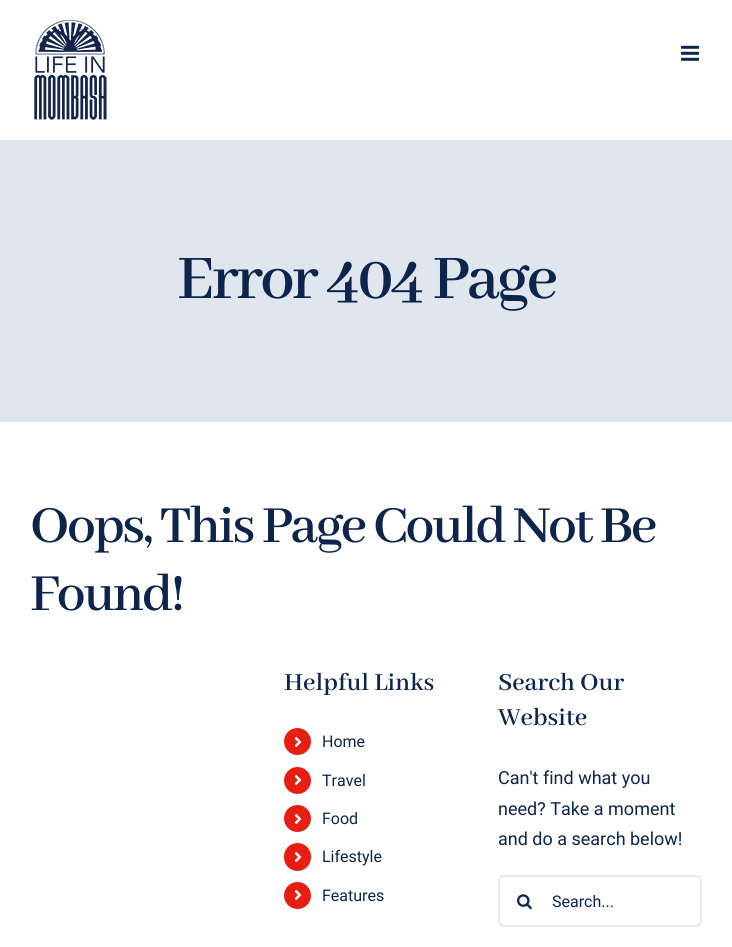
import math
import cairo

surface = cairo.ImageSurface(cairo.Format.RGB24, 732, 947)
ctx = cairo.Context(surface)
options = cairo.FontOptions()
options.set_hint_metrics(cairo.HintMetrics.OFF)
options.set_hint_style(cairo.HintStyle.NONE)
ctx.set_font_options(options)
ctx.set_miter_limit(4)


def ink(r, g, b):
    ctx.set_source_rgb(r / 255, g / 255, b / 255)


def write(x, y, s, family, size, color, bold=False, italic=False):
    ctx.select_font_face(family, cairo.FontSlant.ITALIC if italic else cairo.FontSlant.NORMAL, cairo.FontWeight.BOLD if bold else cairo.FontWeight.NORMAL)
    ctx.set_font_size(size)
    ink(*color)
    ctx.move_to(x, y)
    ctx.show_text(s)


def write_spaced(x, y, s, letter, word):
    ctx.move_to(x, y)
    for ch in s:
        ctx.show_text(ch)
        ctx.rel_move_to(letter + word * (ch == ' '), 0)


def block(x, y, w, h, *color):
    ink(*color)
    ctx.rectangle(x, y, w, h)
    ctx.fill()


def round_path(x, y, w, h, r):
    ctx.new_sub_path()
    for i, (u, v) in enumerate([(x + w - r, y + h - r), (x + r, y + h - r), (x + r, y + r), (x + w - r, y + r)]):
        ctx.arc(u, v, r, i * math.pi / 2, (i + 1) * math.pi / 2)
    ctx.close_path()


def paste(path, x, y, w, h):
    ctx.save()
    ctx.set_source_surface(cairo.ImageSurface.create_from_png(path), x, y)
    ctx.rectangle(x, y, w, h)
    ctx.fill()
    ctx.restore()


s1 = dict(family="Abhaya Libre SemiBold", size=27, color=(13, 36, 76))
s2 = dict(family="Roboto", size=16, color=(13, 36, 76))
s3 = dict(family="Roboto", size=18, color=(13, 36, 76))

ink(255, 255, 255)
ctx.paint()
paste("pic1.png", 34, 20, 73, 100)
paste("pic2.png", 681, 45, 18, 16)
block(0, 140, 732, 282, 223, 230, 238)
ctx.select_font_face("Abhaya Libre SemiBold")
ctx.set_font_size(68.25)
ink(13, 36, 76)
write_spaced(177, 298, "Error 404 Page", -2.75, 0)
ctx.set_font_size(57.25)
write_spaced(30, 542, "Oops, This Page Could Not Be", -2.3, 0)
write_spaced(30, 610, "Found!", -2.3, 0)
write(284, 690, "Helpful Links", **s1)
ink(230, 31, 18)
ctx.new_path()
ctx.arc(297.5, 741.5, 13.5, 0, 2 * math.pi)
ctx.fill()
paste("pic3.png", 294, 737, 8, 10)
write(322, 747, "Home", **s2)
ink(230, 31, 18)
ctx.new_path()
ctx.arc(297.5, 780.5, 13.5, 0, 2 * math.pi)
ctx.fill()
paste("pic3.png", 294, 775, 8, 10)
write(322, 786, "Travel", **s2)
ink(230, 31, 18)
ctx.new_path()
ctx.arc(297.5, 818.5, 13.5, 0, 2 * math.pi)
ctx.fill()
paste("pic3.png", 294, 814, 8, 10)
write(322, 824, "Food", **s2)
ink(230, 31, 18)
round_path(284, 843, 27, 28, 13.5)
ctx.fill()
paste("pic3.png", 294, 852, 8, 10)
write(322, 862, "Lifestyle", **s2)
ink(230, 31, 18)
ctx.new_path()
ctx.arc(297.5, 895.5, 13.5, 0, 2 * math.pi)
ctx.fill()
paste("pic3.png", 294, 890, 8, 10)
write(322, 901, "Features", **s2)
write(498, 690, "Search Our", **s1)
write(498, 725, "Website", **s1)
write(498, 784, "Can't find what you", **s3)
write(498, 815, "need? Take a moment", **s3)
write(498, 845, "and do a search below!", **s3)
round_path(499, 876, 202, 50, 5)
ink(231, 233, 237)
ctx.stroke()
paste("pic4.png", 517, 894, 15, 16)
write(552, 907, "Search...", **s2)
surface.write_to_png("screenshot.png")
